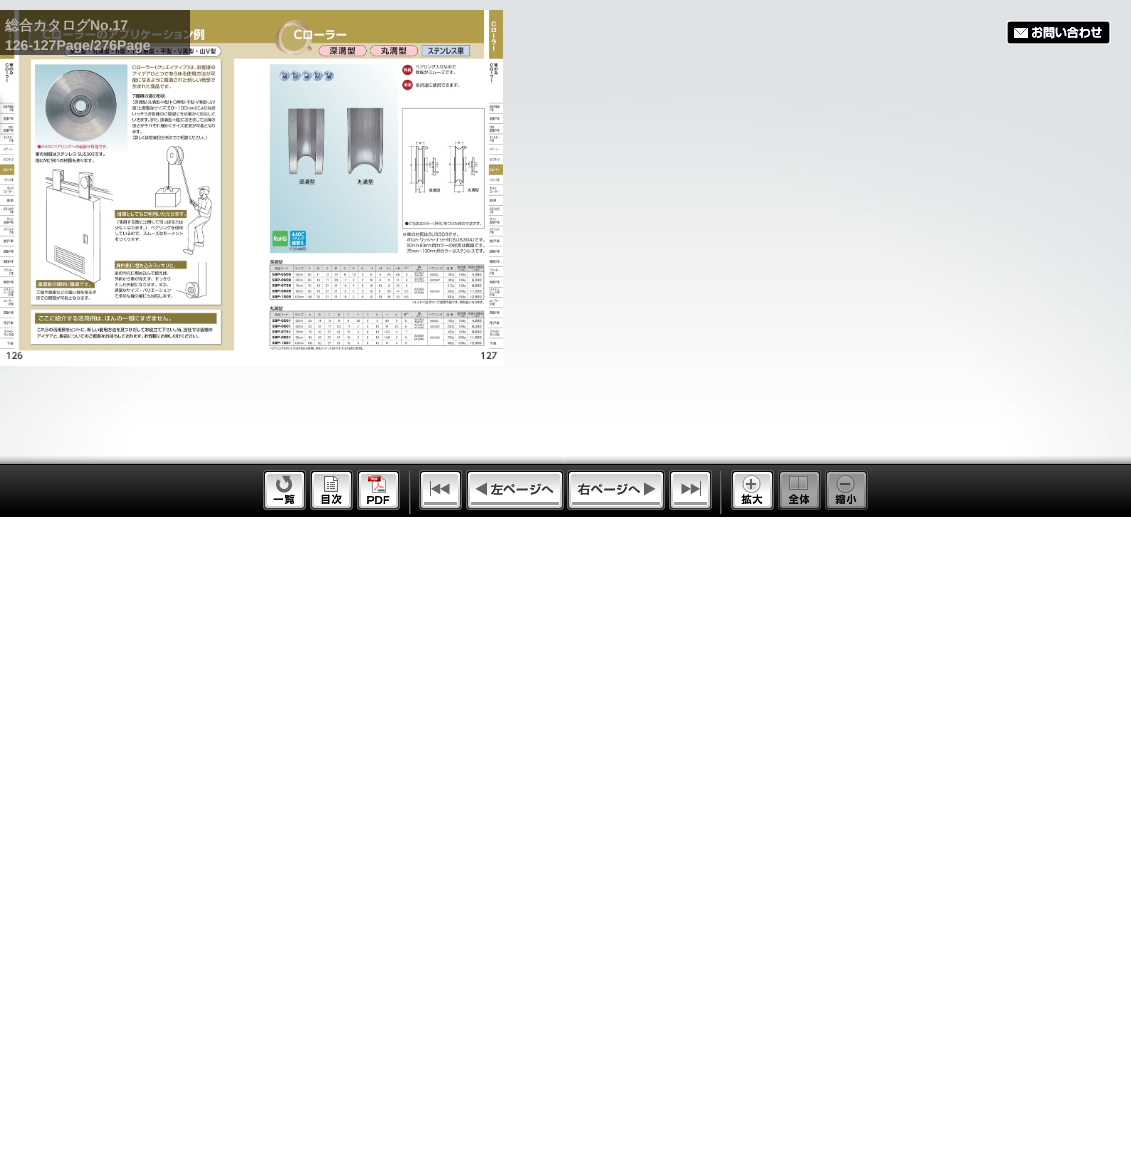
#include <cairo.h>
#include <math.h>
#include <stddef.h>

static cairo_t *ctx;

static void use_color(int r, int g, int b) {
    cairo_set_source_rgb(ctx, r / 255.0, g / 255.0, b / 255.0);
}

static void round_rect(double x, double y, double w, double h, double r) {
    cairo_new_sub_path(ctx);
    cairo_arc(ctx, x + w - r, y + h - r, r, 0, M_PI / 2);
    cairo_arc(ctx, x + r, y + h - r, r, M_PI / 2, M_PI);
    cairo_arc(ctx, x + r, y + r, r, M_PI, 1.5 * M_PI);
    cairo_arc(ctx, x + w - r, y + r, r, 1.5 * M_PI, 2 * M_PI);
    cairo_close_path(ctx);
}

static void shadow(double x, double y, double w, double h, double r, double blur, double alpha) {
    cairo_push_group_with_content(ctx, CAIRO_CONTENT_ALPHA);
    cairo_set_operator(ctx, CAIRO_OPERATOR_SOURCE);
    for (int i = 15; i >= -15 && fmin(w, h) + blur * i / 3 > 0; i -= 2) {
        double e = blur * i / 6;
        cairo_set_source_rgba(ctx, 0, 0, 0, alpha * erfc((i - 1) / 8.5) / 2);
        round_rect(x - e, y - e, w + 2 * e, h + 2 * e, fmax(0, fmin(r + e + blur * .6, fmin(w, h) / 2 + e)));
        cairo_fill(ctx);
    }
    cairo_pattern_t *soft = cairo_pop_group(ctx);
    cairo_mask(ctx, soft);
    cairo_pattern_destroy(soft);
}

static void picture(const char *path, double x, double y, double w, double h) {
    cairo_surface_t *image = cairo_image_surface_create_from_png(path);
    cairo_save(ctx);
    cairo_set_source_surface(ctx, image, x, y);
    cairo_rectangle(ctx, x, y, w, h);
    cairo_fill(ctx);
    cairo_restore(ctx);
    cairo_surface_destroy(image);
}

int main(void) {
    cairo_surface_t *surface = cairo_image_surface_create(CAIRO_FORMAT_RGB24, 1131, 1162);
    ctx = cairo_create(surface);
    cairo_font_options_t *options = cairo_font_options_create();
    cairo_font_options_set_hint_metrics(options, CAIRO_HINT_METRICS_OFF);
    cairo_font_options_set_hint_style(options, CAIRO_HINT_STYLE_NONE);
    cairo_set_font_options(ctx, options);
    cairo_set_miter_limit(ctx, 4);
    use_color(255, 255, 255);
    cairo_paint(ctx);
    picture("img1.png", 0, 0, 1131, 463);
    picture("img2.png", 0, 10, 252, 356);
    picture("img3.png", 252, 10, 251, 356);
    picture("img4.png", 269, 44, 228, 316);
    cairo_set_source_rgba(ctx, 0, 0, 0, 0.6);
    cairo_rectangle(ctx, 0, 10, 190, 45);
    cairo_fill(ctx);
    cairo_select_font_face(ctx, "WenQuanYi Zen Hei", CAIRO_FONT_SLANT_NORMAL, CAIRO_FONT_WEIGHT_BOLD);
    cairo_set_font_size(ctx, 14);
    use_color(184, 181, 171);
    cairo_move_to(ctx, 5, 30);
    cairo_show_text(ctx, "総合カタログ");
    cairo_select_font_face(ctx, "Liberation Sans", CAIRO_FONT_SLANT_NORMAL, CAIRO_FONT_WEIGHT_BOLD);
    use_color(182, 178, 165);
    cairo_move_to(ctx, 90, 30);
    cairo_show_text(ctx, "No.17");
    use_color(186, 184, 179);
    cairo_move_to(ctx, 5, 50);
    cairo_show_text(ctx, "126-127Page/276Page");
    picture("img5.png", 1006, 20, 105, 25);
    picture("img6.png", 0, 456, 1131, 61);
    picture("img7.png", 409, 471, 313, 43);
    picture("img8.png", 263, 470, 43, 40);
    picture("img9.png", 310, 470, 43, 40);
    picture("img10.png", 357, 470, 43, 40);
    picture("img11.png", 419, 470, 43, 40);
    picture("img12.png", 466, 470, 98, 40);
    picture("img13.png", 567, 470, 98, 40);
    picture("img14.png", 669, 470, 43, 40);
    picture("img15.png", 731, 470, 43, 40);
    picture("img16.png", 778, 470, 43, 40);
    picture("img17.png", 825, 470, 43, 40);
    use_color(51, 51, 51);
    shadow(-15, 100, 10, 34, 0, 5, 1);
    cairo_surface_write_to_png(surface, "result.png");
    cairo_font_options_destroy(options);
    cairo_destroy(ctx);
    cairo_surface_destroy(surface);
    return 0;
}
